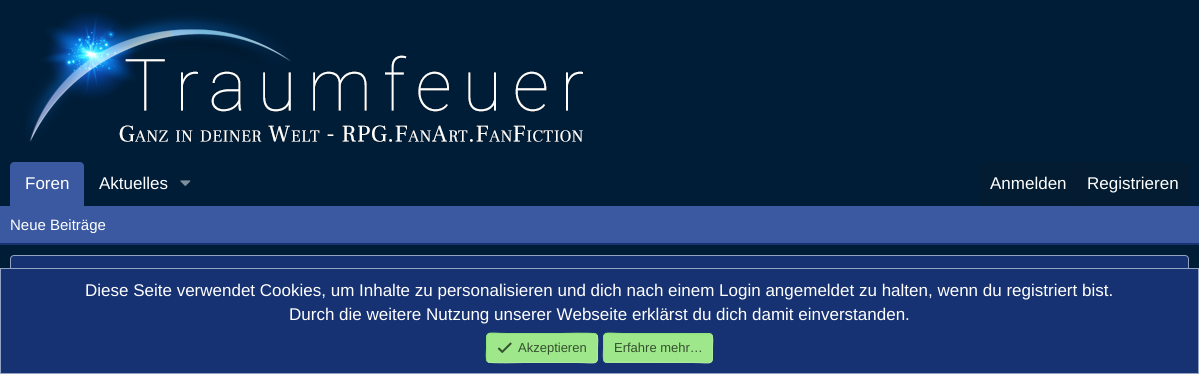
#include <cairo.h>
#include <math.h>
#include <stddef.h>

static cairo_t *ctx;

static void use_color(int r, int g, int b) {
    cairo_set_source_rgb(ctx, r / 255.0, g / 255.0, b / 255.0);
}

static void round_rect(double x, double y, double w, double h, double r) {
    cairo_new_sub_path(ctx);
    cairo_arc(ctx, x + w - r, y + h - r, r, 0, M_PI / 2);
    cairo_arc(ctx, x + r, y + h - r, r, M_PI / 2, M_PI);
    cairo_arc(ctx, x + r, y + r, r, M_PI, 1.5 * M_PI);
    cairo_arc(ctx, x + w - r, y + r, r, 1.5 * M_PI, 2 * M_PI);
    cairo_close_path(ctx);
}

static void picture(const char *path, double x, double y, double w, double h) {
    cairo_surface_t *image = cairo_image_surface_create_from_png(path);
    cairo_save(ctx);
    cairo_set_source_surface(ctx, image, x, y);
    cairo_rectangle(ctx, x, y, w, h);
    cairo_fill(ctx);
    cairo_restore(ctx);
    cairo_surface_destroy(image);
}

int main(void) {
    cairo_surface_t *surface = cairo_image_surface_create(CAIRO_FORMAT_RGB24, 1199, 374);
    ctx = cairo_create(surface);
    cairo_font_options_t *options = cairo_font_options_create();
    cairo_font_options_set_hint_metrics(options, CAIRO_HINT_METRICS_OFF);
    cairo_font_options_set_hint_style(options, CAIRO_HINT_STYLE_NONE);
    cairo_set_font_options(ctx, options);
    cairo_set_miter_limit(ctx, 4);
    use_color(0, 29, 55);
    cairo_paint(ctx);
    picture("img1.png", 25, 12, 558, 130);
    use_color(59, 89, 160);
    cairo_new_path(ctx);
    cairo_move_to(ctx, 14, 162);
    cairo_line_to(ctx, 80, 162);
    cairo_curve_to(ctx, 82, 162, 84, 164, 84, 166);
    cairo_line_to(ctx, 84, 206);
    cairo_line_to(ctx, 10, 206);
    cairo_line_to(ctx, 10, 166);
    cairo_curve_to(ctx, 10, 164, 12, 162, 14, 162);
    cairo_close_path(ctx);
    cairo_fill(ctx);
    cairo_select_font_face(ctx, "Liberation Sans", CAIRO_FONT_SLANT_NORMAL, CAIRO_FONT_WEIGHT_NORMAL);
    cairo_set_font_size(ctx, 17);
    use_color(255, 255, 255);
    cairo_move_to(ctx, 25, 189);
    cairo_show_text(ctx, "Foren");
    cairo_move_to(ctx, 99, 189);
    cairo_show_text(ctx, "Aktuelles");
    picture("img2.png", 180, 180, 11, 6);
    use_color(3, 28, 50);
    cairo_new_path(ctx);
    cairo_move_to(ctx, 984, 162);
    cairo_line_to(ctx, 1185, 162);
    cairo_curve_to(ctx, 1187, 162, 1189, 164, 1189, 166);
    cairo_line_to(ctx, 1189, 206);
    cairo_line_to(ctx, 980, 206);
    cairo_line_to(ctx, 980, 166);
    cairo_curve_to(ctx, 980, 164, 982, 162, 984, 162);
    cairo_close_path(ctx);
    cairo_fill(ctx);
    use_color(255, 255, 255);
    cairo_move_to(ctx, 990, 189);
    cairo_show_text(ctx, "Anmelden");
    use_color(6, 27, 46);
    cairo_rectangle(ctx, 1076, 162, 1, 44);
    cairo_fill(ctx);
    use_color(255, 255, 255);
    cairo_move_to(ctx, 1087, 189);
    cairo_show_text(ctx, "Registrieren");
    use_color(59, 89, 160);
    cairo_rectangle(ctx, 0, 206, 1199, 37);
    cairo_fill(ctx);
    use_color(23, 50, 114);
    cairo_rectangle(ctx, 0, 243, 1199, 2);
    cairo_fill(ctx);
    cairo_set_font_size(ctx, 15);
    use_color(255, 255, 255);
    cairo_move_to(ctx, 10, 230);
    cairo_show_text(ctx, "Neue Beiträge");
    use_color(23, 50, 114);
    round_rect(10.5, 255.5, 1178, 68, 3.5);
    cairo_fill_preserve(ctx);
    use_color(148, 162, 195);
    cairo_set_line_width(ctx, 1);
    cairo_stroke(ctx);
    use_color(23, 50, 114);
    cairo_rectangle(ctx, 0.5, 268.5, 1198, 105);
    cairo_fill_preserve(ctx);
    use_color(148, 162, 195);
    cairo_stroke(ctx);
    cairo_set_font_size(ctx, 17);
    use_color(255, 255, 255);
    cairo_move_to(ctx, 85, 296);
    cairo_show_text(ctx, "Diese Seite verwendet Cookies, um Inhalte zu personalisieren und dich nach einem Login angemeldet zu halten, wenn du registriert bist.");
    cairo_move_to(ctx, 289, 320);
    cairo_show_text(ctx, "Durch die weitere Nutzung unserer Webseite erklärst du dich damit einverstanden.");
    use_color(158, 231, 139);
    round_rect(486, 333, 112, 30, 4);
    cairo_fill(ctx);
    cairo_new_path(ctx);
    cairo_move_to(ctx, 596.5, 334.5);
    cairo_curve_to(ctx, 598.5, 336.5, 597.5, 345, 597.5, 348);
    cairo_curve_to(ctx, 597.5, 367, 599, 362.5, 576.5, 362.5);
    cairo_line_to(ctx, 524.5, 362.5);
    cairo_curve_to(ctx, 521, 362.5, 491, 363.5, 488.5, 362);
    cairo_line_to(ctx, 487.5, 361.5);
    use_color(176, 235, 160);
    cairo_stroke(ctx);
    cairo_new_path(ctx);
    cairo_move_to(ctx, 487.5, 361.5);
    cairo_curve_to(ctx, 485.5, 359.5, 486.5, 351, 486.5, 348);
    cairo_curve_to(ctx, 486.5, 329, 485, 333.5, 507.5, 333.5);
    cairo_line_to(ctx, 559.5, 333.5);
    cairo_curve_to(ctx, 563, 333.5, 593, 332.5, 595.5, 334);
    cairo_line_to(ctx, 596.5, 334.5);
    use_color(140, 227, 118);
    cairo_stroke(ctx);
    picture("img3.png", 497, 342, 15, 12);
    cairo_set_font_size(ctx, 13);
    use_color(52, 80, 45);
    cairo_move_to(ctx, 518, 352);
    cairo_show_text(ctx, "Akzeptieren");
    use_color(158, 231, 139);
    round_rect(603, 333, 110, 30, 4);
    cairo_fill(ctx);
    cairo_new_path(ctx);
    cairo_move_to(ctx, 711.5, 334.5);
    cairo_curve_to(ctx, 713.5, 336.5, 712.5, 345, 712.5, 348);
    cairo_curve_to(ctx, 712.5, 367, 714, 362.5, 692, 362.5);
    cairo_line_to(ctx, 605.5, 362);
    cairo_line_to(ctx, 604.5, 361.5);
    use_color(176, 235, 160);
    cairo_stroke(ctx);
    cairo_new_path(ctx);
    cairo_move_to(ctx, 604.5, 361.5);
    cairo_curve_to(ctx, 602.5, 359.5, 603.5, 351, 603.5, 348);
    cairo_curve_to(ctx, 603.5, 329, 602, 333.5, 624, 333.5);
    cairo_line_to(ctx, 710.5, 334);
    cairo_line_to(ctx, 711.5, 334.5);
    use_color(140, 227, 118);
    cairo_stroke(ctx);
    use_color(52, 80, 45);
    cairo_move_to(ctx, 614, 352);
    cairo_show_text(ctx, "Erfahre mehr…");
    cairo_surface_write_to_png(surface, "result.png");
    cairo_font_options_destroy(options);
    cairo_destroy(ctx);
    cairo_surface_destroy(surface);
    return 0;
}
